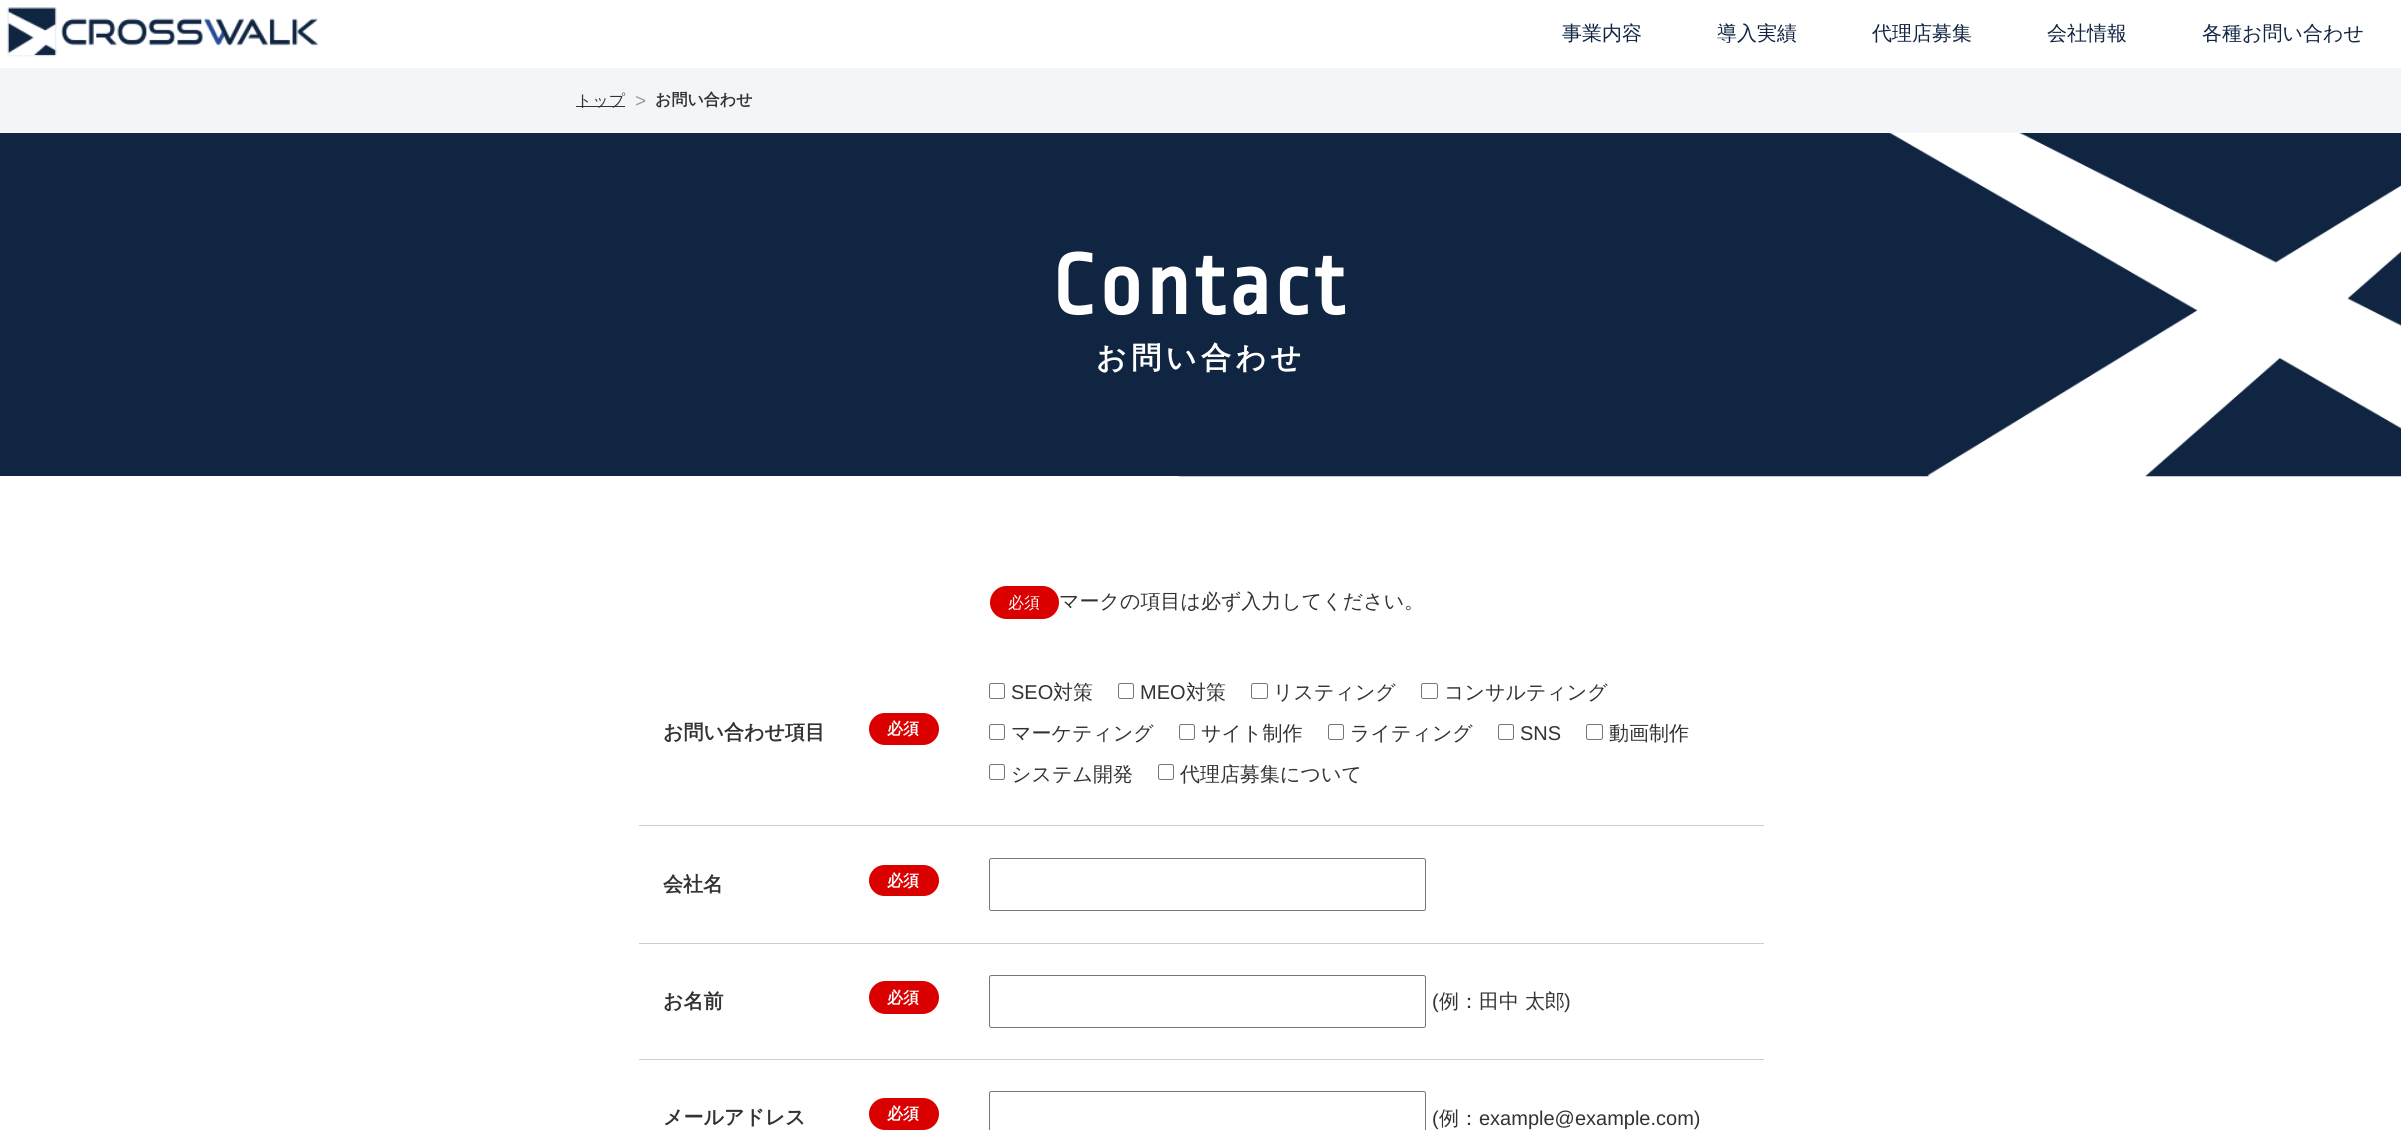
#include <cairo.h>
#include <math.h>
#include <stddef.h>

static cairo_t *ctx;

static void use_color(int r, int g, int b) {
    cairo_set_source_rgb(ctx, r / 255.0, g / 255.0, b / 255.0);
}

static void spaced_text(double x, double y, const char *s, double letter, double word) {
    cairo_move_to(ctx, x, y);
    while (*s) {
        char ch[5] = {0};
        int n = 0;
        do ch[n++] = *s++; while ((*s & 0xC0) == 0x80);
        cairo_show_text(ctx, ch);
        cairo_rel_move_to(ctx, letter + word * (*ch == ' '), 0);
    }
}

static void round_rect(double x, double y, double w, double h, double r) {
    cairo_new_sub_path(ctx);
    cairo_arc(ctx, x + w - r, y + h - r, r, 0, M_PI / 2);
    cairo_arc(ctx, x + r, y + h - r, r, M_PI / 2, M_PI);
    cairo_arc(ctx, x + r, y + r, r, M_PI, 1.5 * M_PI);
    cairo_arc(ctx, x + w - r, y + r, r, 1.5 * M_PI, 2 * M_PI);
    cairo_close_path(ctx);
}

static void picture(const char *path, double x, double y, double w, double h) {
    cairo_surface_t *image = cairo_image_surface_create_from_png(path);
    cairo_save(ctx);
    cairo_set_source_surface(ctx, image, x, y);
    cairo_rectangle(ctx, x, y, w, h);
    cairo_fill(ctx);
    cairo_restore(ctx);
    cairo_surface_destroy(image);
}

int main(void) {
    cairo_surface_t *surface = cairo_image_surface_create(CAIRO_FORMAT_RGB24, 2401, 1130);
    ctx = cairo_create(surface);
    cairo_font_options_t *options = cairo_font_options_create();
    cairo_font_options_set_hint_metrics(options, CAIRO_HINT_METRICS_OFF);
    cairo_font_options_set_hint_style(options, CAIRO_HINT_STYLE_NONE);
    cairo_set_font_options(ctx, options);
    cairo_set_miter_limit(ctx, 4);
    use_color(255, 255, 255);
    cairo_paint(ctx);
    picture("img1.png", 7, 7, 311, 50);
    cairo_select_font_face(ctx, "WenQuanYi Zen Hei Medium", CAIRO_FONT_SLANT_NORMAL, CAIRO_FONT_WEIGHT_NORMAL);
    cairo_set_font_size(ctx, 20);
    use_color(16, 37, 66);
    cairo_move_to(ctx, 1562, 40);
    cairo_show_text(ctx, "事業内容");
    cairo_move_to(ctx, 1717, 40);
    cairo_show_text(ctx, "導入実績");
    cairo_move_to(ctx, 1872, 40);
    cairo_show_text(ctx, "代理店募集");
    cairo_move_to(ctx, 2047, 40);
    cairo_show_text(ctx, "会社情報");
    cairo_move_to(ctx, 2202, 40);
    cairo_show_text(ctx, "各種お問い合わせ");
    use_color(243, 246, 249);
    cairo_rectangle(ctx, 0, 68, 2401, 65);
    cairo_fill(ctx);
    use_color(51, 51, 51);
    cairo_rectangle(ctx, 576, 106, 49, 1);
    cairo_fill(ctx);
    cairo_set_font_size(ctx, 16);
    cairo_move_to(ctx, 576, 106);
    cairo_show_text(ctx, "トップ");
    cairo_select_font_face(ctx, "Liberation Sans", CAIRO_FONT_SLANT_NORMAL, CAIRO_FONT_WEIGHT_NORMAL);
    cairo_set_font_size(ctx, 19);
    use_color(153, 153, 153);
    spaced_text(635, 107, ">", -4, 0);
    cairo_select_font_face(ctx, "WenQuanYi Zen Hei", CAIRO_FONT_SLANT_NORMAL, CAIRO_FONT_WEIGHT_BOLD);
    cairo_set_font_size(ctx, 16);
    use_color(51, 51, 51);
    cairo_move_to(ctx, 655, 105);
    cairo_show_text(ctx, "お問い合わせ");
    use_color(16, 37, 66);
    cairo_rectangle(ctx, 0, 133, 1179, 343);
    cairo_fill(ctx);
    picture("img2.png", 1178, 133, 1223, 344);
    cairo_select_font_face(ctx, "Ropa Sans", CAIRO_FONT_SLANT_NORMAL, CAIRO_FONT_WEIGHT_BOLD);
    cairo_set_font_size(ctx, 90);
    use_color(255, 255, 255);
    spaced_text(1052, 314, "Contact", 4.5, 0);
    cairo_select_font_face(ctx, "WenQuanYi Zen Hei", CAIRO_FONT_SLANT_NORMAL, CAIRO_FONT_WEIGHT_BOLD);
    cairo_set_font_size(ctx, 30);
    spaced_text(1096, 368, "お問い合わせ", 4.5, 0);
    use_color(218, 0, 0);
    round_rect(990, 586, 69, 33, 16.5);
    cairo_fill(ctx);
    cairo_select_font_face(ctx, "WenQuanYi Zen Hei Medium", CAIRO_FONT_SLANT_NORMAL, CAIRO_FONT_WEIGHT_NORMAL);
    cairo_set_font_size(ctx, 16);
    use_color(255, 255, 255);
    cairo_move_to(ctx, 1008, 608);
    cairo_show_text(ctx, "必須");
    cairo_set_font_size(ctx, 20);
    use_color(51, 51, 51);
    cairo_move_to(ctx, 1059, 608);
    cairo_show_text(ctx, "マークの項目は必ず入力してください。");
    cairo_select_font_face(ctx, "WenQuanYi Zen Hei", CAIRO_FONT_SLANT_NORMAL, CAIRO_FONT_WEIGHT_BOLD);
    cairo_move_to(ctx, 663, 739);
    cairo_show_text(ctx, "お問い合わせ項目");
    use_color(218, 0, 0);
    round_rect(869, 713, 70, 32, 16);
    cairo_fill(ctx);
    cairo_set_font_size(ctx, 16);
    use_color(255, 255, 255);
    cairo_move_to(ctx, 887, 734);
    cairo_show_text(ctx, "必須");
    round_rect(989.5, 683.5, 15, 15, 2);
    use_color(118, 118, 118);
    cairo_set_line_width(ctx, 1);
    cairo_stroke(ctx);
    cairo_select_font_face(ctx, "Liberation Sans", CAIRO_FONT_SLANT_NORMAL, CAIRO_FONT_WEIGHT_NORMAL);
    cairo_set_font_size(ctx, 20);
    use_color(51, 51, 51);
    cairo_move_to(ctx, 1011, 699);
    cairo_show_text(ctx, "SEO");
    cairo_select_font_face(ctx, "WenQuanYi Zen Hei Medium", CAIRO_FONT_SLANT_NORMAL, CAIRO_FONT_WEIGHT_NORMAL);
    cairo_move_to(ctx, 1053, 699);
    cairo_show_text(ctx, "対策");
    round_rect(1118.5, 683.5, 15, 15, 2);
    use_color(118, 118, 118);
    cairo_stroke(ctx);
    cairo_select_font_face(ctx, "Liberation Sans", CAIRO_FONT_SLANT_NORMAL, CAIRO_FONT_WEIGHT_NORMAL);
    use_color(51, 51, 51);
    cairo_move_to(ctx, 1140, 699);
    cairo_show_text(ctx, "MEO");
    cairo_select_font_face(ctx, "WenQuanYi Zen Hei Medium", CAIRO_FONT_SLANT_NORMAL, CAIRO_FONT_WEIGHT_NORMAL);
    cairo_move_to(ctx, 1186, 699);
    cairo_show_text(ctx, "対策");
    round_rect(1251.5, 683.5, 16, 15, 2);
    use_color(118, 118, 118);
    cairo_stroke(ctx);
    use_color(51, 51, 51);
    cairo_move_to(ctx, 1273, 699);
    cairo_show_text(ctx, "リスティング");
    round_rect(1421.5, 683.5, 16, 15, 2);
    use_color(118, 118, 118);
    cairo_stroke(ctx);
    use_color(51, 51, 51);
    cairo_move_to(ctx, 1444, 699);
    cairo_show_text(ctx, "コンサルティング");
    round_rect(989.5, 724.5, 15, 15, 2);
    use_color(118, 118, 118);
    cairo_stroke(ctx);
    use_color(51, 51, 51);
    cairo_move_to(ctx, 1011, 740);
    cairo_show_text(ctx, "マーケティング");
    round_rect(1179.5, 724.5, 15, 15, 2);
    use_color(118, 118, 118);
    cairo_stroke(ctx);
    use_color(51, 51, 51);
    cairo_move_to(ctx, 1201, 740);
    cairo_show_text(ctx, "サイト制作");
    round_rect(1328.5, 724.5, 15, 15, 2);
    use_color(118, 118, 118);
    cairo_stroke(ctx);
    use_color(51, 51, 51);
    cairo_move_to(ctx, 1350, 740);
    cairo_show_text(ctx, "ライティング");
    round_rect(1498.5, 724.5, 15, 15, 2);
    use_color(118, 118, 118);
    cairo_stroke(ctx);
    cairo_select_font_face(ctx, "Liberation Sans", CAIRO_FONT_SLANT_NORMAL, CAIRO_FONT_WEIGHT_NORMAL);
    use_color(51, 51, 51);
    cairo_move_to(ctx, 1520, 740);
    cairo_show_text(ctx, "SNS");
    round_rect(1586.5, 724.5, 16, 15, 2);
    use_color(118, 118, 118);
    cairo_stroke(ctx);
    cairo_select_font_face(ctx, "WenQuanYi Zen Hei Medium", CAIRO_FONT_SLANT_NORMAL, CAIRO_FONT_WEIGHT_NORMAL);
    use_color(51, 51, 51);
    cairo_move_to(ctx, 1609, 740);
    cairo_show_text(ctx, "動画制作");
    round_rect(989.5, 764.5, 15, 15, 2);
    use_color(118, 118, 118);
    cairo_stroke(ctx);
    use_color(51, 51, 51);
    cairo_move_to(ctx, 1011, 781);
    cairo_show_text(ctx, "システム開発");
    round_rect(1158.5, 764.5, 15, 15, 2);
    use_color(118, 118, 118);
    cairo_stroke(ctx);
    use_color(51, 51, 51);
    cairo_move_to(ctx, 1180, 781);
    cairo_show_text(ctx, "代理店募集について");
    use_color(204, 204, 204);
    cairo_rectangle(ctx, 639, 825, 1125, 1);
    cairo_fill(ctx);
    cairo_select_font_face(ctx, "WenQuanYi Zen Hei", CAIRO_FONT_SLANT_NORMAL, CAIRO_FONT_WEIGHT_BOLD);
    use_color(51, 51, 51);
    cairo_move_to(ctx, 663, 891);
    cairo_show_text(ctx, "会社名");
    use_color(218, 0, 0);
    round_rect(869, 865, 70, 31, 15.5);
    cairo_fill(ctx);
    cairo_set_font_size(ctx, 16);
    use_color(255, 255, 255);
    cairo_move_to(ctx, 887, 886);
    cairo_show_text(ctx, "必須");
    round_rect(989.5, 858.5, 436, 52, 2);
    use_color(118, 118, 118);
    cairo_stroke(ctx);
    use_color(204, 204, 204);
    cairo_rectangle(ctx, 639, 943, 1125, 1);
    cairo_fill(ctx);
    cairo_set_font_size(ctx, 20);
    use_color(51, 51, 51);
    cairo_move_to(ctx, 663, 1008);
    cairo_show_text(ctx, "お名前");
    use_color(218, 0, 0);
    round_rect(869, 981, 70, 33, 16.5);
    cairo_fill(ctx);
    cairo_set_font_size(ctx, 16);
    use_color(255, 255, 255);
    cairo_move_to(ctx, 887, 1003);
    cairo_show_text(ctx, "必須");
    round_rect(989.5, 975.5, 436, 52, 2);
    use_color(118, 118, 118);
    cairo_stroke(ctx);
    cairo_select_font_face(ctx, "Liberation Sans", CAIRO_FONT_SLANT_NORMAL, CAIRO_FONT_WEIGHT_NORMAL);
    cairo_set_font_size(ctx, 20);
    use_color(51, 51, 51);
    cairo_move_to(ctx, 1432, 1008);
    cairo_show_text(ctx, "(");
    cairo_select_font_face(ctx, "WenQuanYi Zen Hei Medium", CAIRO_FONT_SLANT_NORMAL, CAIRO_FONT_WEIGHT_NORMAL);
    cairo_move_to(ctx, 1439, 1008);
    cairo_show_text(ctx, "例：田中 太郎");
    cairo_select_font_face(ctx, "Liberation Sans", CAIRO_FONT_SLANT_NORMAL, CAIRO_FONT_WEIGHT_NORMAL);
    cairo_move_to(ctx, 1564, 1008);
    cairo_show_text(ctx, ")");
    use_color(204, 204, 204);
    cairo_rectangle(ctx, 639, 1059, 1125, 1);
    cairo_fill(ctx);
    cairo_select_font_face(ctx, "WenQuanYi Zen Hei", CAIRO_FONT_SLANT_NORMAL, CAIRO_FONT_WEIGHT_BOLD);
    use_color(51, 51, 51);
    cairo_move_to(ctx, 663, 1124);
    cairo_show_text(ctx, "メールアドレス");
    use_color(218, 0, 0);
    round_rect(869, 1098, 70, 32, 16);
    cairo_fill(ctx);
    cairo_set_font_size(ctx, 16);
    use_color(255, 255, 255);
    cairo_move_to(ctx, 887, 1119);
    cairo_show_text(ctx, "必須");
    round_rect(989.5, 1091.5, 436, 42, 2);
    use_color(118, 118, 118);
    cairo_stroke(ctx);
    cairo_select_font_face(ctx, "Liberation Sans", CAIRO_FONT_SLANT_NORMAL, CAIRO_FONT_WEIGHT_NORMAL);
    cairo_set_font_size(ctx, 20);
    use_color(51, 51, 51);
    cairo_move_to(ctx, 1432, 1125);
    cairo_show_text(ctx, "(");
    cairo_select_font_face(ctx, "WenQuanYi Zen Hei Medium", CAIRO_FONT_SLANT_NORMAL, CAIRO_FONT_WEIGHT_NORMAL);
    cairo_move_to(ctx, 1439, 1125);
    cairo_show_text(ctx, "例：");
    cairo_select_font_face(ctx, "Liberation Sans", CAIRO_FONT_SLANT_NORMAL, CAIRO_FONT_WEIGHT_NORMAL);
    cairo_move_to(ctx, 1479, 1125);
    cairo_show_text(ctx, "example@example.com)");
    cairo_surface_write_to_png(surface, "result.png");
    cairo_font_options_destroy(options);
    cairo_destroy(ctx);
    cairo_surface_destroy(surface);
    return 0;
}
